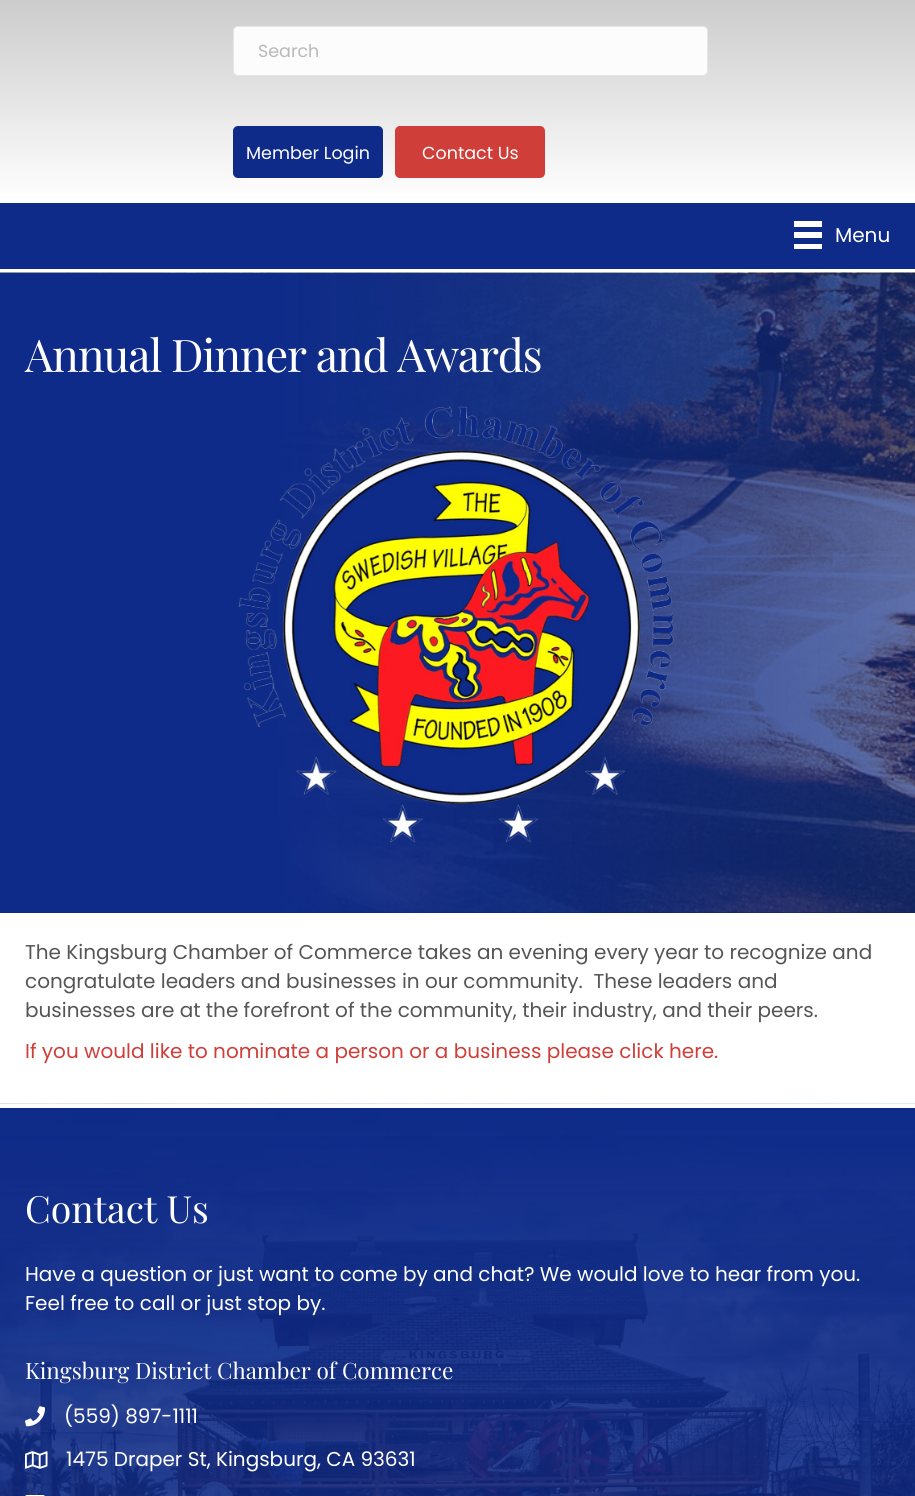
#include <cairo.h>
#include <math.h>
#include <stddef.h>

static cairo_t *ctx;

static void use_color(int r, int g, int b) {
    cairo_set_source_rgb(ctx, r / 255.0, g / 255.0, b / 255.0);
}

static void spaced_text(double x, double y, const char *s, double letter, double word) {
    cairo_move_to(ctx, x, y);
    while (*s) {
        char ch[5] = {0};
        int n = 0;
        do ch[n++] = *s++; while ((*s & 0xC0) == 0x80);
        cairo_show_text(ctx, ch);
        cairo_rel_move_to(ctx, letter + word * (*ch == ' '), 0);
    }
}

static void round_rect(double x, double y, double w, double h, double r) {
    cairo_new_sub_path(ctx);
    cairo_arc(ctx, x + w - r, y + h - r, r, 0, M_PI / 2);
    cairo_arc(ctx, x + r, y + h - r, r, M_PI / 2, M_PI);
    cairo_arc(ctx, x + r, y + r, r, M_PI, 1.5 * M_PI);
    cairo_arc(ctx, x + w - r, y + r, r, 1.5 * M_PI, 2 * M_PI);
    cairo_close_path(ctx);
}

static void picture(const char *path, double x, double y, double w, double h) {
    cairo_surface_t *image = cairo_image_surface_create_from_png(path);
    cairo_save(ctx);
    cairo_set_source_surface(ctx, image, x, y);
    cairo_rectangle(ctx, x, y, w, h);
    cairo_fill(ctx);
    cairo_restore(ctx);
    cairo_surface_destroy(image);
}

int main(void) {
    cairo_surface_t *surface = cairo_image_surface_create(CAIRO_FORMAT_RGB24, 915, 1496);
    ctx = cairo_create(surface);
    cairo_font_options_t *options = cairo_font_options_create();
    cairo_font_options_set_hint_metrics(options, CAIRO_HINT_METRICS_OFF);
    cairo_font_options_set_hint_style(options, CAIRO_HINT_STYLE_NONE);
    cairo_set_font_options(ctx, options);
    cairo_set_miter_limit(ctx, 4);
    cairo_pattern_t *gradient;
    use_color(255, 255, 255);
    cairo_paint(ctx);
    gradient = cairo_pattern_create_linear(458, 0, 458, 203);
    cairo_pattern_add_color_stop_rgba(gradient, 0, 0.8, 0.8, 0.8, 1);
    cairo_pattern_add_color_stop_rgba(gradient, 1, 1, 1, 1, 1);
    cairo_set_source(ctx, gradient);
    cairo_pattern_destroy(gradient);
    cairo_rectangle(ctx, 0, 0, 915, 193);
    cairo_fill(ctx);
    use_color(252, 252, 252);
    round_rect(233.5, 26.5, 474, 49, 4.5);
    cairo_fill_preserve(ctx);
    use_color(230, 230, 230);
    cairo_set_line_width(ctx, 1);
    cairo_stroke(ctx);
    cairo_select_font_face(ctx, "Poppins", CAIRO_FONT_SLANT_NORMAL, CAIRO_FONT_WEIGHT_NORMAL);
    cairo_set_font_size(ctx, 17.5);
    use_color(185, 185, 185);
    cairo_move_to(ctx, 258, 57);
    cairo_show_text(ctx, "Search");
    use_color(14, 43, 137);
    round_rect(233, 126, 150, 52, 5);
    cairo_fill(ctx);
    use_color(255, 255, 255);
    cairo_move_to(ctx, 246, 159);
    cairo_show_text(ctx, "Member Login");
    use_color(207, 62, 56);
    round_rect(395, 126, 150, 52, 5);
    cairo_fill(ctx);
    use_color(255, 255, 255);
    cairo_move_to(ctx, 422, 159);
    cairo_show_text(ctx, "Contact Us");
    use_color(14, 43, 137);
    cairo_rectangle(ctx, 0, 203, 915, 66);
    cairo_fill(ctx);
    use_color(255, 255, 255);
    cairo_rectangle(ctx, 794, 221, 28, 6);
    cairo_fill(ctx);
    cairo_rectangle(ctx, 794, 232, 28, 6);
    cairo_fill(ctx);
    cairo_rectangle(ctx, 794, 244, 28, 5);
    cairo_fill(ctx);
    cairo_set_font_size(ctx, 20);
    cairo_move_to(ctx, 835, 242);
    cairo_show_text(ctx, "Menu");
    use_color(5, 22, 34);
    cairo_rectangle(ctx, 284, 912, 631, 1);
    cairo_fill(ctx);
    picture("img1.png", 0, 272, 915, 641);
    gradient = cairo_pattern_create_linear(0, 593, 915, 593);
    cairo_pattern_add_color_stop_rgba(gradient, 0.3, 0.055, 0.169, 0.537, 1);
    cairo_pattern_add_color_stop_rgba(gradient, 1, 0.055, 0.169, 0.537, 0.62);
    cairo_set_source(ctx, gradient);
    cairo_pattern_destroy(gradient);
    cairo_rectangle(ctx, 0, 273, 915, 640);
    cairo_fill(ctx);
    cairo_select_font_face(ctx, "Playfair Display", CAIRO_FONT_SLANT_NORMAL, CAIRO_FONT_WEIGHT_NORMAL);
    cairo_set_font_size(ctx, 45);
    use_color(255, 255, 255);
    spaced_text(25, 372, "Annual Dinner and Awards", -1.25, 0);
    picture("img2.png", 238, 406, 436, 437);
    cairo_select_font_face(ctx, "Poppins", CAIRO_FONT_SLANT_NORMAL, CAIRO_FONT_WEIGHT_NORMAL);
    cairo_set_font_size(ctx, 20);
    use_color(85, 85, 85);
    cairo_move_to(ctx, 25, 959);
    cairo_show_text(ctx, "The Kingsburg Chamber of Commerce takes an evening every year to recognize and");
    cairo_move_to(ctx, 25, 988);
    cairo_show_text(ctx, "congratulate leaders and businesses in our community.  These leaders and");
    cairo_move_to(ctx, 25, 1017);
    cairo_show_text(ctx, "businesses are at the forefront of the community, their industry, and their peers.");
    use_color(207, 62, 56);
    cairo_move_to(ctx, 25, 1058);
    cairo_show_text(ctx, "If you would like to nominate a person or a business please click here.");
    picture("img3.png", 0, 1103, 915, 393);
    use_color(255, 255, 255);
    cairo_rectangle(ctx, 0, 1104, 915, 4);
    cairo_fill(ctx);
    cairo_select_font_face(ctx, "Playfair Display", CAIRO_FONT_SLANT_NORMAL, CAIRO_FONT_WEIGHT_NORMAL);
    cairo_set_font_size(ctx, 37.5);
    cairo_move_to(ctx, 25, 1223);
    cairo_show_text(ctx, "Contact Us");
    cairo_select_font_face(ctx, "Poppins", CAIRO_FONT_SLANT_NORMAL, CAIRO_FONT_WEIGHT_NORMAL);
    cairo_set_font_size(ctx, 20);
    cairo_move_to(ctx, 25, 1281);
    cairo_show_text(ctx, "Have a question or just want to come by and chat? We would love to hear from you.");
    cairo_move_to(ctx, 25, 1310);
    cairo_show_text(ctx, "Feel free to call or just stop by.");
    cairo_select_font_face(ctx, "Playfair Display", CAIRO_FONT_SLANT_NORMAL, CAIRO_FONT_WEIGHT_NORMAL);
    cairo_set_font_size(ctx, 22.5);
    cairo_move_to(ctx, 25, 1379);
    cairo_show_text(ctx, "Kingsburg District Chamber of Commerce");
    picture("img4.png", 25, 1406, 20, 21);
    cairo_select_font_face(ctx, "Poppins", CAIRO_FONT_SLANT_NORMAL, CAIRO_FONT_WEIGHT_NORMAL);
    cairo_set_font_size(ctx, 20);
    cairo_move_to(ctx, 64, 1423);
    cairo_show_text(ctx, "(559) 897-1111");
    picture("img5.png", 25, 1451, 23, 18);
    cairo_move_to(ctx, 66, 1466);
    cairo_show_text(ctx, "1475 Draper St, Kingsburg, CA 93631");
    picture("img6.png", 25, 1495, 20, 1);
    cairo_surface_write_to_png(surface, "result.png");
    cairo_font_options_destroy(options);
    cairo_destroy(ctx);
    cairo_surface_destroy(surface);
    return 0;
}
